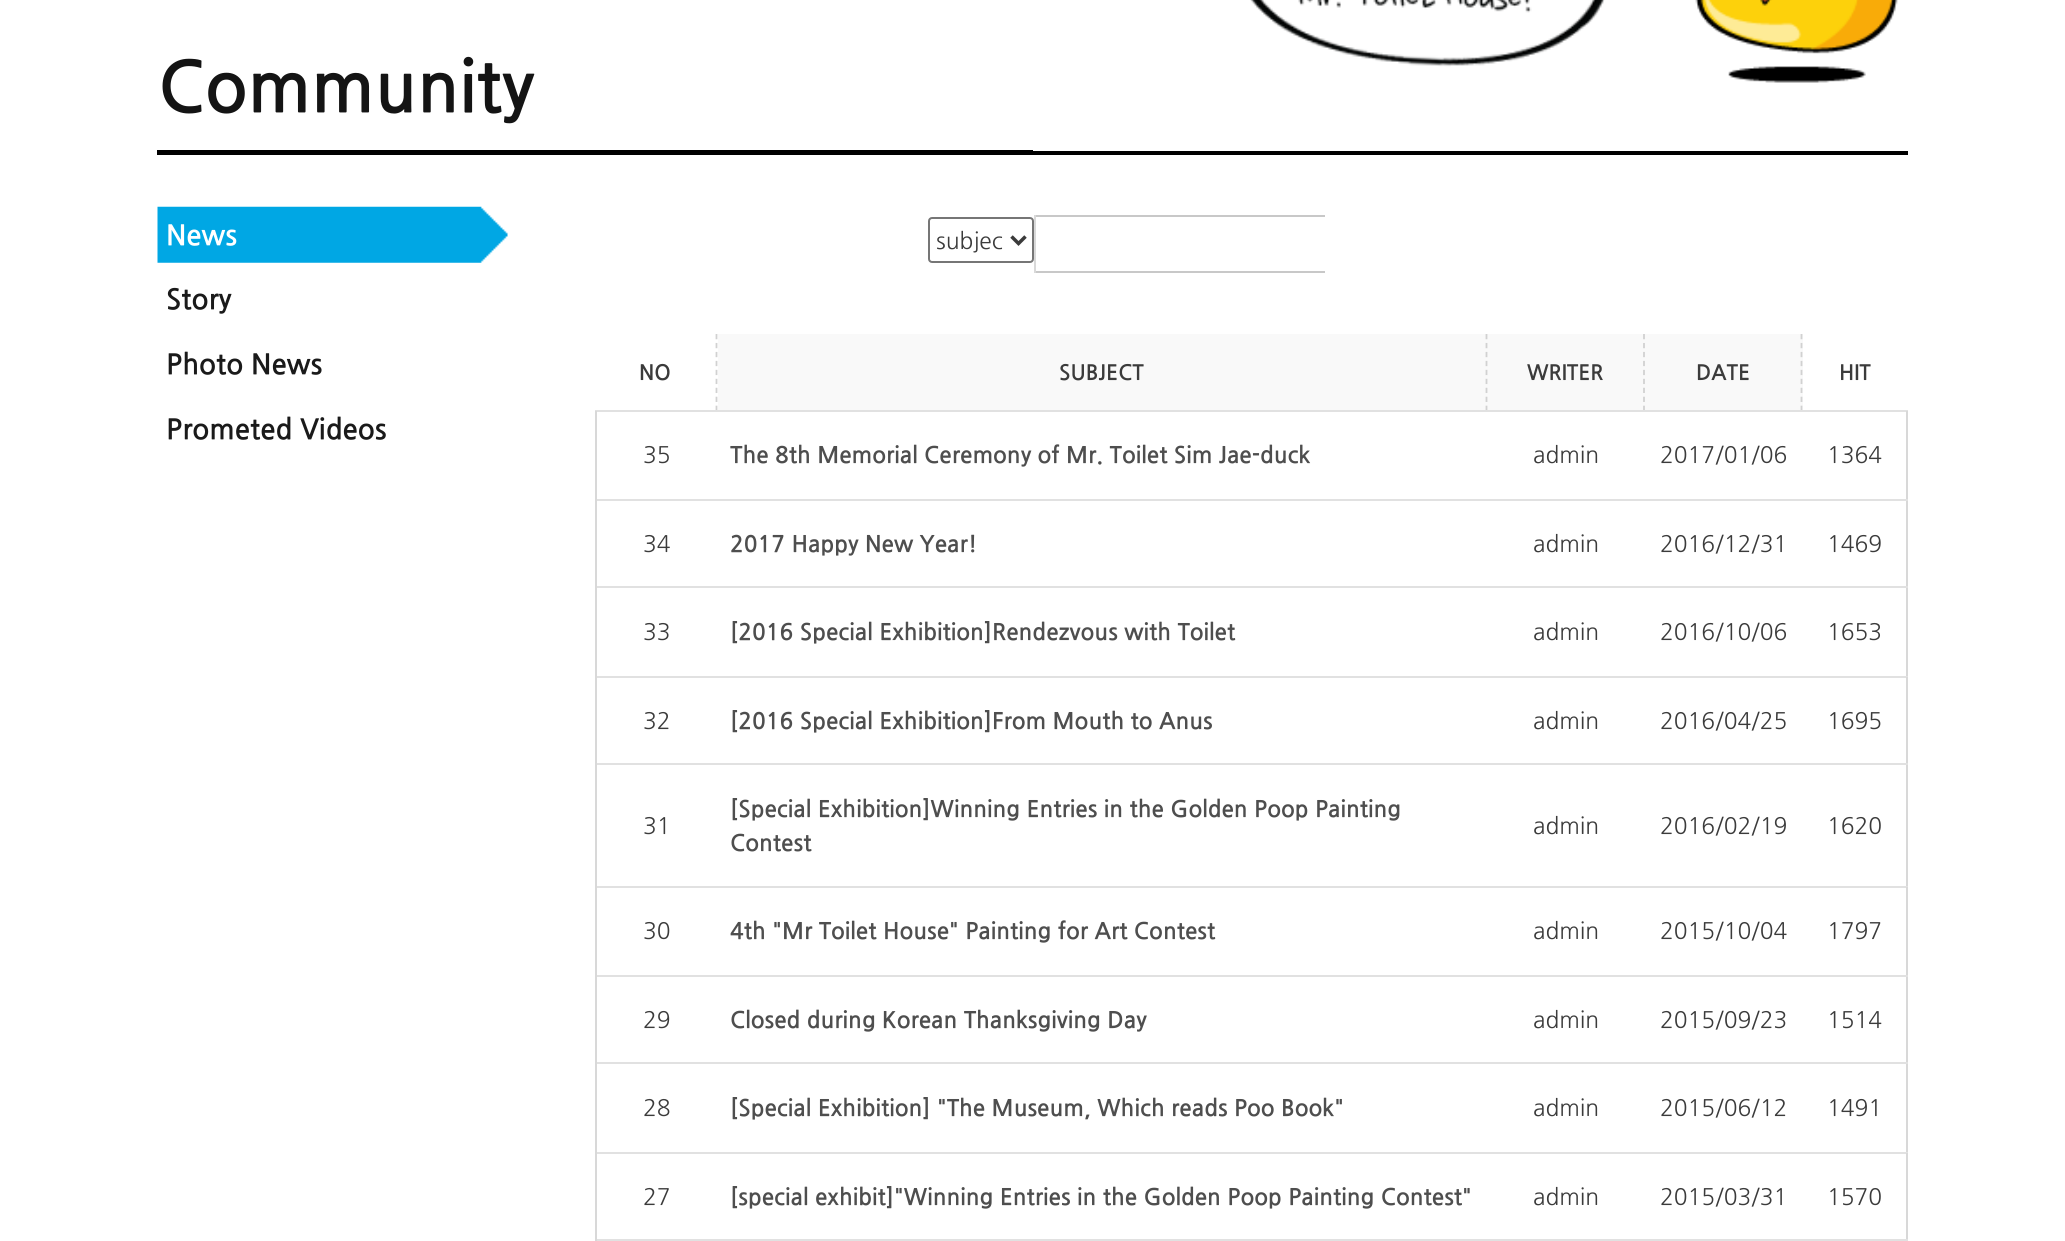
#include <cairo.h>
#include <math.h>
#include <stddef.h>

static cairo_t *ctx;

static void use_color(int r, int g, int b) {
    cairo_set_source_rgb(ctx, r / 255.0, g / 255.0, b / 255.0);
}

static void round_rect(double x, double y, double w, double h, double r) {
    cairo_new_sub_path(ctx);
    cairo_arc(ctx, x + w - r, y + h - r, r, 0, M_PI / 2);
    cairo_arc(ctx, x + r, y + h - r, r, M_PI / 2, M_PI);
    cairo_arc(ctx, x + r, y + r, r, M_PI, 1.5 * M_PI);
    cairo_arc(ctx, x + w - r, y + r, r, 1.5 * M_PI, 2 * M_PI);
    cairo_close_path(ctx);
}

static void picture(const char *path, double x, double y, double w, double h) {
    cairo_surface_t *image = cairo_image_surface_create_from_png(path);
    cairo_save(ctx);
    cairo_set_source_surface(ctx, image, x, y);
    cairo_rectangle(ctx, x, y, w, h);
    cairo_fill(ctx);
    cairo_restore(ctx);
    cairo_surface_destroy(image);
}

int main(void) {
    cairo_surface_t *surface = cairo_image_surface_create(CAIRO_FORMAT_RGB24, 2065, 1241);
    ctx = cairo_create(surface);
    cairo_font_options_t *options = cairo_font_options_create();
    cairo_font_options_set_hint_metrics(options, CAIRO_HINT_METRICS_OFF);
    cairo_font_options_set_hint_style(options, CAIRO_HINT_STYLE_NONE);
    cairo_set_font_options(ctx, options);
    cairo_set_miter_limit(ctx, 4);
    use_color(255, 255, 255);
    cairo_paint(ctx);
    picture("img1.png", 1250, 0, 648, 83);
    use_color(0, 0, 0);
    cairo_rectangle(ctx, 157, 150, 876, 5);
    cairo_fill(ctx);
    cairo_select_font_face(ctx, "NanumGothic", CAIRO_FONT_SLANT_NORMAL, CAIRO_FONT_WEIGHT_BOLD);
    cairo_set_font_size(ctx, 70);
    use_color(20, 20, 20);
    cairo_move_to(ctx, 158, 109);
    cairo_show_text(ctx, "Community");
    picture("img2.png", 157, 206, 351, 57);
    cairo_set_font_size(ctx, 28);
    use_color(255, 255, 255);
    cairo_move_to(ctx, 166, 244);
    cairo_show_text(ctx, "News");
    use_color(26, 26, 26);
    cairo_move_to(ctx, 166, 308);
    cairo_show_text(ctx, "Story");
    cairo_move_to(ctx, 166, 373);
    cairo_show_text(ctx, "Photo News");
    cairo_move_to(ctx, 166, 438);
    cairo_show_text(ctx, "Prometed Videos");
    use_color(0, 0, 0);
    cairo_rectangle(ctx, 1033, 151, 875, 4);
    cairo_fill(ctx);
    use_color(217, 217, 217);
    cairo_rectangle(ctx, 1034, 215, 2, 58);
    cairo_fill(ctx);
    round_rect(929, 218, 104, 44, 3);
    use_color(118, 118, 118);
    cairo_stroke(ctx);
    cairo_new_path(ctx);
    cairo_move_to(ctx, 1011.5, 236.5);
    cairo_line_to(ctx, 1018.5, 243.5);
    cairo_line_to(ctx, 1025.5, 236.5);
    use_color(59, 59, 59);
    cairo_set_line_width(ctx, 3.5);
    cairo_stroke(ctx);
    cairo_select_font_face(ctx, "NanumGothic", CAIRO_FONT_SLANT_NORMAL, CAIRO_FONT_WEIGHT_NORMAL);
    cairo_set_font_size(ctx, 22.75);
    cairo_move_to(ctx, 936, 248);
    cairo_show_text(ctx, "subjec");
    use_color(200, 200, 200);
    cairo_rectangle(ctx, 1036, 215, 289, 2);
    cairo_fill(ctx);
    cairo_rectangle(ctx, 1036, 271, 289, 2);
    cairo_fill(ctx);
    cairo_new_path(ctx);
    cairo_move_to(ctx, 716.5, 334);
    cairo_line_to(ctx, 716.5, 411);
    use_color(209, 209, 209);
    cairo_set_line_width(ctx, 1.8);
    cairo_set_dash(ctx, (double[]){5.25, 3.71}, 2, 0);
    cairo_stroke(ctx);
    use_color(225, 225, 225);
    cairo_rectangle(ctx, 595, 410, 123, 2);
    cairo_fill(ctx);
    cairo_select_font_face(ctx, "NanumGothic", CAIRO_FONT_SLANT_NORMAL, CAIRO_FONT_WEIGHT_BOLD);
    cairo_set_font_size(ctx, 21);
    use_color(59, 59, 59);
    cairo_move_to(ctx, 639, 379);
    cairo_show_text(ctx, "NO");
    use_color(249, 249, 249);
    cairo_rectangle(ctx, 718, 334, 1085, 76);
    cairo_fill(ctx);
    cairo_new_path(ctx);
    cairo_move_to(ctx, 1486.5, 334);
    cairo_line_to(ctx, 1486.5, 411);
    use_color(209, 209, 209);
    cairo_stroke(ctx);
    use_color(225, 225, 225);
    cairo_rectangle(ctx, 718, 410, 770, 2);
    cairo_fill(ctx);
    use_color(59, 59, 59);
    cairo_move_to(ctx, 1059, 379);
    cairo_show_text(ctx, "SUBJECT");
    cairo_new_path(ctx);
    cairo_move_to(ctx, 1644, 334);
    cairo_line_to(ctx, 1644, 411);
    use_color(209, 209, 209);
    cairo_stroke(ctx);
    use_color(225, 225, 225);
    cairo_rectangle(ctx, 1488, 410, 157, 2);
    cairo_fill(ctx);
    use_color(59, 59, 59);
    cairo_move_to(ctx, 1527, 379);
    cairo_show_text(ctx, "WRITER");
    cairo_new_path(ctx);
    cairo_move_to(ctx, 1801.5, 334);
    cairo_line_to(ctx, 1801.5, 411);
    use_color(209, 209, 209);
    cairo_stroke(ctx);
    use_color(225, 225, 225);
    cairo_rectangle(ctx, 1645, 410, 263, 2);
    cairo_fill(ctx);
    use_color(59, 59, 59);
    cairo_move_to(ctx, 1696, 379);
    cairo_show_text(ctx, "DATE");
    cairo_move_to(ctx, 1839, 379);
    cairo_show_text(ctx, "HIT");
    use_color(225, 225, 225);
    cairo_rectangle(ctx, 595, 499, 1208, 2);
    cairo_fill(ctx);
    use_color(216, 216, 216);
    cairo_rectangle(ctx, 595, 411, 2, 90);
    cairo_fill(ctx);
    cairo_select_font_face(ctx, "NanumGothic", CAIRO_FONT_SLANT_NORMAL, CAIRO_FONT_WEIGHT_NORMAL);
    cairo_set_font_size(ctx, 22.75);
    use_color(59, 59, 59);
    cairo_move_to(ctx, 643, 462);
    cairo_show_text(ctx, "35");
    cairo_select_font_face(ctx, "NanumGothic", CAIRO_FONT_SLANT_NORMAL, CAIRO_FONT_WEIGHT_BOLD);
    use_color(78, 78, 78);
    cairo_move_to(ctx, 730, 462);
    cairo_show_text(ctx, "The 8th Memorial Ceremony of Mr. Toilet Sim Jae-duck");
    cairo_select_font_face(ctx, "NanumGothic", CAIRO_FONT_SLANT_NORMAL, CAIRO_FONT_WEIGHT_NORMAL);
    use_color(59, 59, 59);
    cairo_move_to(ctx, 1533, 462);
    cairo_show_text(ctx, "admin");
    cairo_move_to(ctx, 1660, 462);
    cairo_show_text(ctx, "2017/01/06");
    use_color(216, 216, 216);
    cairo_rectangle(ctx, 1906, 411, 2, 266);
    cairo_fill(ctx);
    use_color(225, 225, 225);
    cairo_rectangle(ctx, 1803, 499, 105, 2);
    cairo_fill(ctx);
    use_color(59, 59, 59);
    cairo_move_to(ctx, 1827, 462);
    cairo_show_text(ctx, "1364");
    use_color(225, 225, 225);
    cairo_rectangle(ctx, 595, 586, 1313, 2);
    cairo_fill(ctx);
    use_color(216, 216, 216);
    cairo_rectangle(ctx, 595, 501, 2, 87);
    cairo_fill(ctx);
    use_color(59, 59, 59);
    cairo_move_to(ctx, 643, 551);
    cairo_show_text(ctx, "34");
    cairo_select_font_face(ctx, "NanumGothic", CAIRO_FONT_SLANT_NORMAL, CAIRO_FONT_WEIGHT_BOLD);
    use_color(78, 78, 78);
    cairo_move_to(ctx, 730, 551);
    cairo_show_text(ctx, "2017 Happy New Year!");
    cairo_select_font_face(ctx, "NanumGothic", CAIRO_FONT_SLANT_NORMAL, CAIRO_FONT_WEIGHT_NORMAL);
    use_color(59, 59, 59);
    cairo_move_to(ctx, 1533, 551);
    cairo_show_text(ctx, "admin");
    cairo_move_to(ctx, 1660, 551);
    cairo_show_text(ctx, "2016/12/31");
    cairo_move_to(ctx, 1827, 551);
    cairo_show_text(ctx, "1469");
    use_color(225, 225, 225);
    cairo_rectangle(ctx, 595, 676, 1313, 2);
    cairo_fill(ctx);
    use_color(216, 216, 216);
    cairo_rectangle(ctx, 595, 588, 2, 89);
    cairo_fill(ctx);
    use_color(59, 59, 59);
    cairo_move_to(ctx, 643, 639);
    cairo_show_text(ctx, "33");
    cairo_select_font_face(ctx, "NanumGothic", CAIRO_FONT_SLANT_NORMAL, CAIRO_FONT_WEIGHT_BOLD);
    use_color(78, 78, 78);
    cairo_move_to(ctx, 730, 639);
    cairo_show_text(ctx, "[2016 Special Exhibition]Rendezvous with Toilet");
    cairo_select_font_face(ctx, "NanumGothic", CAIRO_FONT_SLANT_NORMAL, CAIRO_FONT_WEIGHT_NORMAL);
    use_color(59, 59, 59);
    cairo_move_to(ctx, 1533, 639);
    cairo_show_text(ctx, "admin");
    cairo_move_to(ctx, 1660, 639);
    cairo_show_text(ctx, "2016/10/06");
    cairo_move_to(ctx, 1827, 639);
    cairo_show_text(ctx, "1653");
    use_color(225, 225, 225);
    cairo_rectangle(ctx, 595, 763, 1208, 2);
    cairo_fill(ctx);
    use_color(216, 216, 216);
    cairo_rectangle(ctx, 595, 677, 2, 88);
    cairo_fill(ctx);
    use_color(59, 59, 59);
    cairo_move_to(ctx, 643, 728);
    cairo_show_text(ctx, "32");
    cairo_select_font_face(ctx, "NanumGothic", CAIRO_FONT_SLANT_NORMAL, CAIRO_FONT_WEIGHT_BOLD);
    use_color(78, 78, 78);
    cairo_move_to(ctx, 730, 728);
    cairo_show_text(ctx, "[2016 Special Exhibition]From Mouth to Anus");
    cairo_select_font_face(ctx, "NanumGothic", CAIRO_FONT_SLANT_NORMAL, CAIRO_FONT_WEIGHT_NORMAL);
    use_color(59, 59, 59);
    cairo_move_to(ctx, 1533, 728);
    cairo_show_text(ctx, "admin");
    cairo_move_to(ctx, 1660, 728);
    cairo_show_text(ctx, "2016/04/25");
    use_color(216, 216, 216);
    cairo_rectangle(ctx, 1906, 677, 2, 210);
    cairo_fill(ctx);
    use_color(225, 225, 225);
    cairo_rectangle(ctx, 1803, 763, 105, 2);
    cairo_fill(ctx);
    use_color(59, 59, 59);
    cairo_move_to(ctx, 1827, 728);
    cairo_show_text(ctx, "1695");
    use_color(225, 225, 225);
    cairo_rectangle(ctx, 595, 886, 1313, 2);
    cairo_fill(ctx);
    use_color(216, 216, 216);
    cairo_rectangle(ctx, 595, 765, 2, 122);
    cairo_fill(ctx);
    use_color(59, 59, 59);
    cairo_move_to(ctx, 643, 833);
    cairo_show_text(ctx, "31");
    cairo_select_font_face(ctx, "NanumGothic", CAIRO_FONT_SLANT_NORMAL, CAIRO_FONT_WEIGHT_BOLD);
    use_color(78, 78, 78);
    cairo_move_to(ctx, 730, 816);
    cairo_show_text(ctx, "[Special Exhibition]Winning Entries in the Golden Poop Painting");
    cairo_move_to(ctx, 730, 850);
    cairo_show_text(ctx, "Contest");
    cairo_select_font_face(ctx, "NanumGothic", CAIRO_FONT_SLANT_NORMAL, CAIRO_FONT_WEIGHT_NORMAL);
    use_color(59, 59, 59);
    cairo_move_to(ctx, 1533, 833);
    cairo_show_text(ctx, "admin");
    cairo_move_to(ctx, 1660, 833);
    cairo_show_text(ctx, "2016/02/19");
    cairo_move_to(ctx, 1827, 833);
    cairo_show_text(ctx, "1620");
    use_color(225, 225, 225);
    cairo_rectangle(ctx, 595, 975, 1208, 2);
    cairo_fill(ctx);
    use_color(216, 216, 216);
    cairo_rectangle(ctx, 595, 887, 2, 90);
    cairo_fill(ctx);
    use_color(59, 59, 59);
    cairo_move_to(ctx, 643, 938);
    cairo_show_text(ctx, "30");
    cairo_select_font_face(ctx, "NanumGothic", CAIRO_FONT_SLANT_NORMAL, CAIRO_FONT_WEIGHT_BOLD);
    use_color(78, 78, 78);
    cairo_move_to(ctx, 730, 938);
    cairo_show_text(ctx, "4th \"Mr Toilet House\" Painting for Art Contest");
    cairo_select_font_face(ctx, "NanumGothic", CAIRO_FONT_SLANT_NORMAL, CAIRO_FONT_WEIGHT_NORMAL);
    use_color(59, 59, 59);
    cairo_move_to(ctx, 1533, 938);
    cairo_show_text(ctx, "admin");
    cairo_move_to(ctx, 1660, 938);
    cairo_show_text(ctx, "2015/10/04");
    use_color(216, 216, 216);
    cairo_rectangle(ctx, 1906, 887, 2, 266);
    cairo_fill(ctx);
    use_color(225, 225, 225);
    cairo_rectangle(ctx, 1803, 975, 105, 2);
    cairo_fill(ctx);
    use_color(59, 59, 59);
    cairo_move_to(ctx, 1827, 938);
    cairo_show_text(ctx, "1797");
    use_color(225, 225, 225);
    cairo_rectangle(ctx, 595, 1062, 1313, 2);
    cairo_fill(ctx);
    use_color(216, 216, 216);
    cairo_rectangle(ctx, 595, 977, 2, 87);
    cairo_fill(ctx);
    use_color(59, 59, 59);
    cairo_move_to(ctx, 643, 1027);
    cairo_show_text(ctx, "29");
    cairo_select_font_face(ctx, "NanumGothic", CAIRO_FONT_SLANT_NORMAL, CAIRO_FONT_WEIGHT_BOLD);
    use_color(78, 78, 78);
    cairo_move_to(ctx, 730, 1027);
    cairo_show_text(ctx, "Closed during Korean Thanksgiving Day");
    cairo_select_font_face(ctx, "NanumGothic", CAIRO_FONT_SLANT_NORMAL, CAIRO_FONT_WEIGHT_NORMAL);
    use_color(59, 59, 59);
    cairo_move_to(ctx, 1533, 1027);
    cairo_show_text(ctx, "admin");
    cairo_move_to(ctx, 1660, 1027);
    cairo_show_text(ctx, "2015/09/23");
    cairo_move_to(ctx, 1827, 1027);
    cairo_show_text(ctx, "1514");
    use_color(225, 225, 225);
    cairo_rectangle(ctx, 595, 1152, 1313, 2);
    cairo_fill(ctx);
    use_color(216, 216, 216);
    cairo_rectangle(ctx, 595, 1064, 2, 89);
    cairo_fill(ctx);
    use_color(59, 59, 59);
    cairo_move_to(ctx, 643, 1115);
    cairo_show_text(ctx, "28");
    cairo_select_font_face(ctx, "NanumGothic", CAIRO_FONT_SLANT_NORMAL, CAIRO_FONT_WEIGHT_BOLD);
    use_color(78, 78, 78);
    cairo_move_to(ctx, 730, 1115);
    cairo_show_text(ctx, "[Special Exhibition] \"The Museum, Which reads Poo Book\"");
    cairo_select_font_face(ctx, "NanumGothic", CAIRO_FONT_SLANT_NORMAL, CAIRO_FONT_WEIGHT_NORMAL);
    use_color(59, 59, 59);
    cairo_move_to(ctx, 1533, 1115);
    cairo_show_text(ctx, "admin");
    cairo_move_to(ctx, 1660, 1115);
    cairo_show_text(ctx, "2015/06/12");
    cairo_move_to(ctx, 1827, 1115);
    cairo_show_text(ctx, "1491");
    use_color(225, 225, 225);
    cairo_rectangle(ctx, 595, 1239, 1208, 2);
    cairo_fill(ctx);
    use_color(216, 216, 216);
    cairo_rectangle(ctx, 595, 1153, 2, 88);
    cairo_fill(ctx);
    use_color(59, 59, 59);
    cairo_move_to(ctx, 643, 1204);
    cairo_show_text(ctx, "27");
    cairo_select_font_face(ctx, "NanumGothic", CAIRO_FONT_SLANT_NORMAL, CAIRO_FONT_WEIGHT_BOLD);
    use_color(78, 78, 78);
    cairo_move_to(ctx, 730, 1204);
    cairo_show_text(ctx, "[special exhibit]\"Winning Entries in the Golden Poop Painting Contest\"");
    cairo_select_font_face(ctx, "NanumGothic", CAIRO_FONT_SLANT_NORMAL, CAIRO_FONT_WEIGHT_NORMAL);
    use_color(59, 59, 59);
    cairo_move_to(ctx, 1533, 1204);
    cairo_show_text(ctx, "admin");
    cairo_move_to(ctx, 1660, 1204);
    cairo_show_text(ctx, "2015/03/31");
    use_color(216, 216, 216);
    cairo_rectangle(ctx, 1906, 1153, 2, 88);
    cairo_fill(ctx);
    use_color(225, 225, 225);
    cairo_rectangle(ctx, 1803, 1239, 105, 2);
    cairo_fill(ctx);
    use_color(59, 59, 59);
    cairo_move_to(ctx, 1827, 1204);
    cairo_show_text(ctx, "1570");
    cairo_surface_write_to_png(surface, "result.png");
    cairo_font_options_destroy(options);
    cairo_destroy(ctx);
    cairo_surface_destroy(surface);
    return 0;
}
